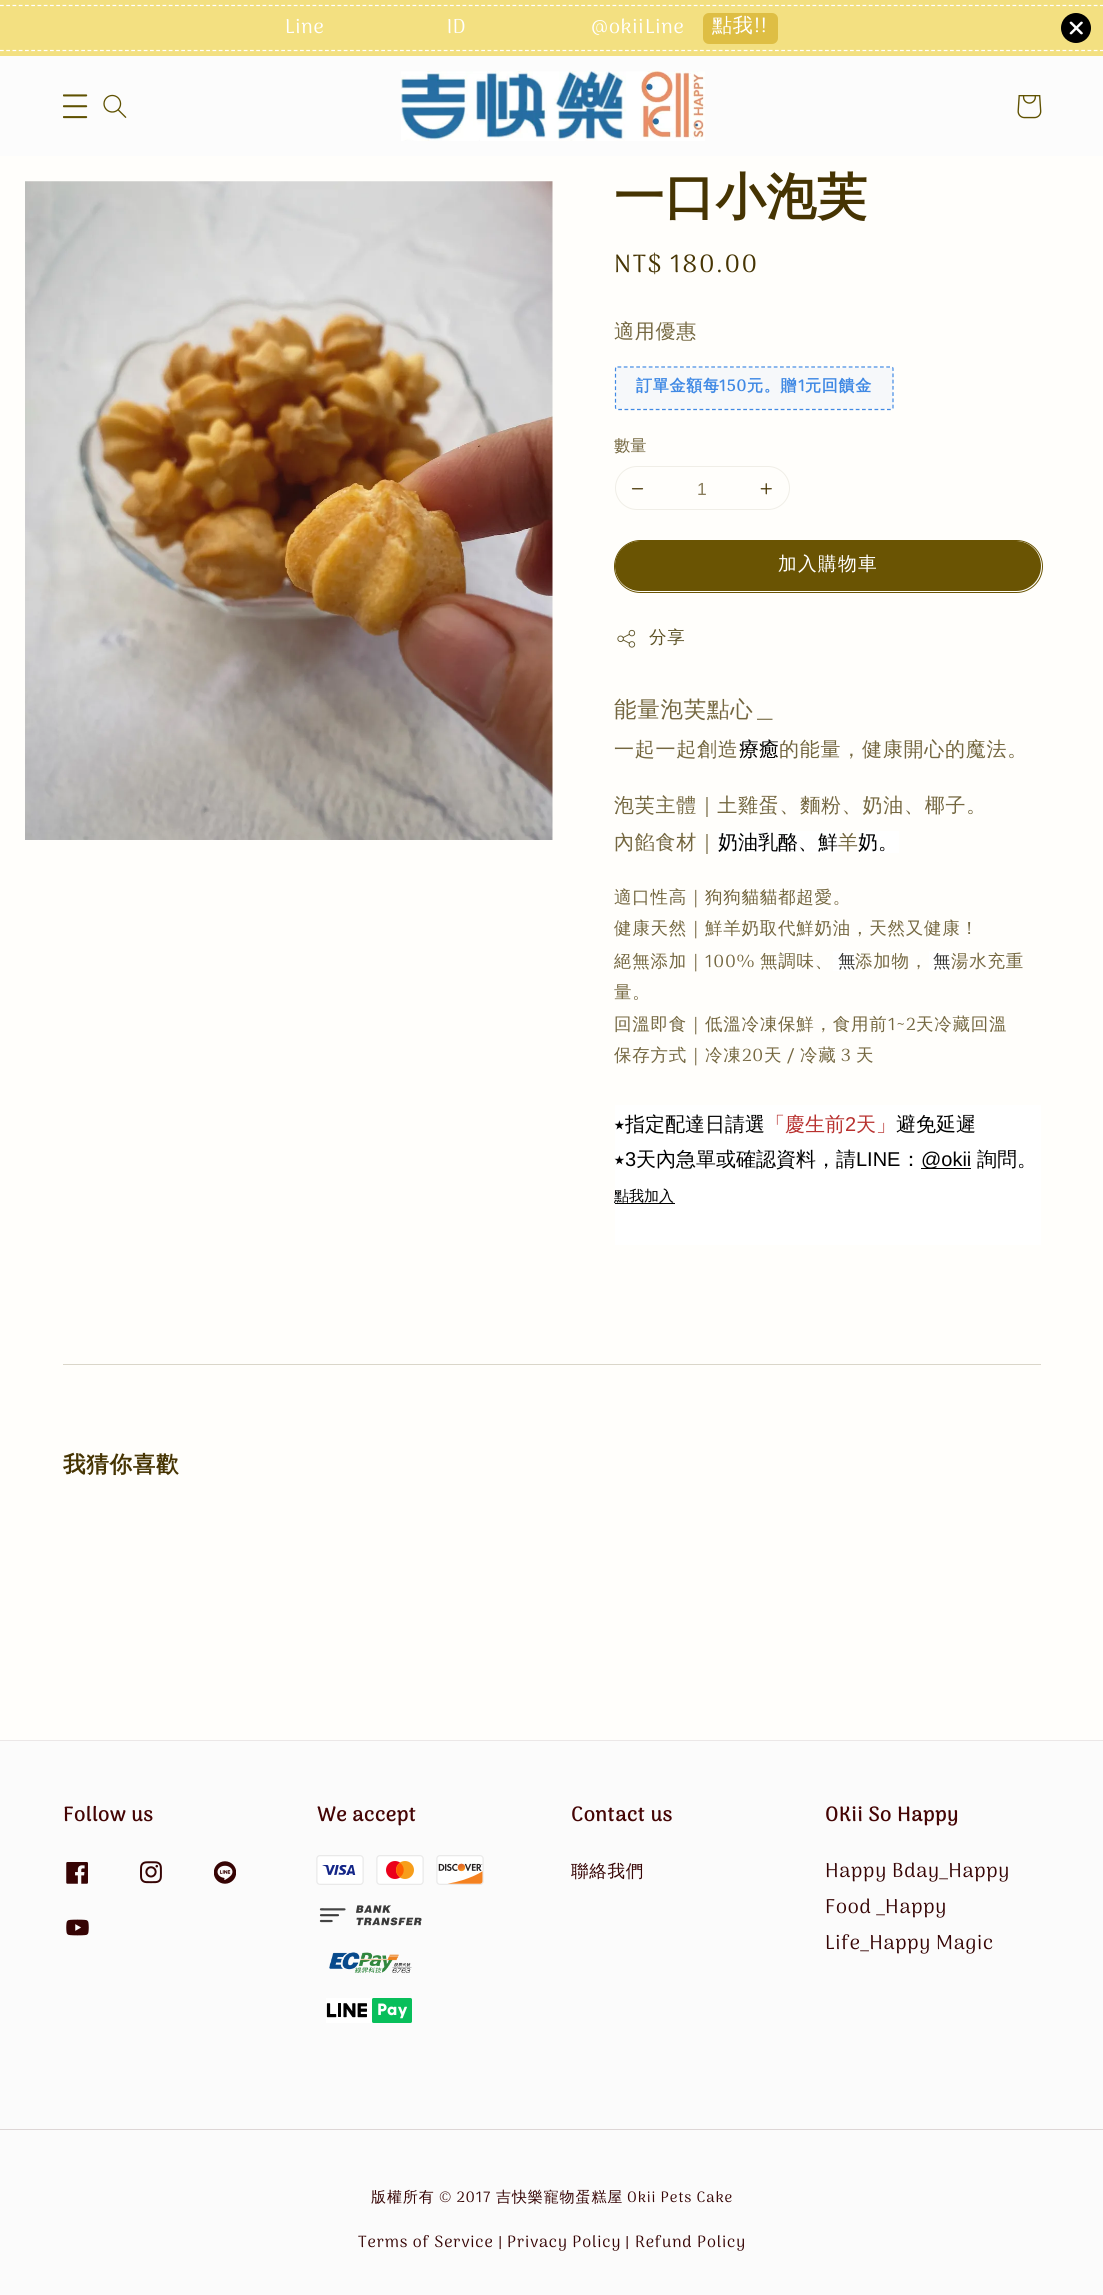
#include <cairo.h>
#include <math.h>
#include <stddef.h>

static cairo_t *ctx;

static void use_color(int r, int g, int b) {
    cairo_set_source_rgb(ctx, r / 255.0, g / 255.0, b / 255.0);
}

static void spaced_text(double x, double y, const char *s, double letter, double word) {
    cairo_move_to(ctx, x, y);
    while (*s) {
        char ch[5] = {0};
        int n = 0;
        do ch[n++] = *s++; while ((*s & 0xC0) == 0x80);
        cairo_show_text(ctx, ch);
        cairo_rel_move_to(ctx, letter + word * (*ch == ' '), 0);
    }
}

static void round_rect(double x, double y, double w, double h, double r) {
    cairo_new_sub_path(ctx);
    cairo_arc(ctx, x + w - r, y + h - r, r, 0, M_PI / 2);
    cairo_arc(ctx, x + r, y + h - r, r, M_PI / 2, M_PI);
    cairo_arc(ctx, x + r, y + r, r, M_PI, 1.5 * M_PI);
    cairo_arc(ctx, x + w - r, y + r, r, 1.5 * M_PI, 2 * M_PI);
    cairo_close_path(ctx);
}

static void picture(const char *path, double x, double y, double w, double h) {
    cairo_surface_t *image = cairo_image_surface_create_from_png(path);
    cairo_save(ctx);
    cairo_set_source_surface(ctx, image, x, y);
    cairo_rectangle(ctx, x, y, w, h);
    cairo_fill(ctx);
    cairo_restore(ctx);
    cairo_surface_destroy(image);
}

int main(void) {
    cairo_surface_t *surface = cairo_image_surface_create(CAIRO_FORMAT_RGB24, 1103, 2295);
    ctx = cairo_create(surface);
    cairo_font_options_t *options = cairo_font_options_create();
    cairo_font_options_set_hint_metrics(options, CAIRO_HINT_METRICS_OFF);
    cairo_font_options_set_hint_style(options, CAIRO_HINT_STYLE_NONE);
    cairo_set_font_options(ctx, options);
    cairo_set_miter_limit(ctx, 4);
    use_color(255, 254, 251);
    cairo_paint(ctx);
    use_color(243, 224, 129);
    cairo_rectangle(ctx, 0, 0, 1103, 56);
    cairo_fill(ctx);
    cairo_new_path(ctx);
    cairo_move_to(ctx, 0, 5.5);
    cairo_line_to(ctx, 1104, 5.5);
    use_color(255, 255, 255);
    cairo_set_line_width(ctx, 1.2);
    cairo_set_dash(ctx, (double[]){3.75, 2.5}, 2, 0);
    cairo_stroke(ctx);
    cairo_new_path(ctx);
    cairo_move_to(ctx, 0, 50.5);
    cairo_line_to(ctx, 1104, 50.5);
    cairo_stroke(ctx);
    cairo_select_font_face(ctx, "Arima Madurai", CAIRO_FONT_SLANT_NORMAL, CAIRO_FONT_WEIGHT_NORMAL);
    cairo_set_font_size(ctx, 20);
    spaced_text(285, 33, "Line ID", 0.75, 117);
    spaced_text(591, 33, "@okii", 0.75, 0);
    spaced_text(645, 33, "Line", 0.75, 0);
    use_color(222, 190, 68);
    round_rect(703, 13, 75, 31, 6);
    cairo_fill(ctx);
    cairo_select_font_face(ctx, "WenQuanYi Zen Hei Medium", CAIRO_FONT_SLANT_NORMAL, CAIRO_FONT_WEIGHT_NORMAL);
    use_color(255, 255, 255);
    spaced_text(712, 32, "點我", 0.75, 0);
    cairo_select_font_face(ctx, "Arima Madurai", CAIRO_FONT_SLANT_NORMAL, CAIRO_FONT_WEIGHT_NORMAL);
    spaced_text(754, 32, "!!", 0.75, 0);
    use_color(0, 0, 0);
    cairo_new_path(ctx);
    cairo_arc(ctx, 1076, 28, 15, 0, 2 * M_PI);
    cairo_fill(ctx);
    use_color(255, 255, 255);
    cairo_new_path(ctx);
    cairo_move_to(ctx, 1082.5, 22);
    cairo_curve_to(ctx, 1083, 22.5, 1083, 23, 1082.5, 23.5);
    cairo_line_to(ctx, 1072, 34);
    cairo_curve_to(ctx, 1071.5, 34.5, 1070.5, 34.5, 1070, 34);
    cairo_curve_to(ctx, 1069.5, 33.5, 1069.5, 33, 1070, 32.5);
    cairo_line_to(ctx, 1080.5, 22);
    cairo_curve_to(ctx, 1081, 21.5, 1082, 21.5, 1082.5, 22);
    cairo_close_path(ctx);
    cairo_fill(ctx);
    cairo_new_path(ctx);
    cairo_move_to(ctx, 1070, 22);
    cairo_curve_to(ctx, 1070.5, 21.5, 1071.5, 21.5, 1072, 22);
    cairo_line_to(ctx, 1082.5, 32.5);
    cairo_curve_to(ctx, 1083, 33, 1083, 33.5, 1082.5, 34);
    cairo_curve_to(ctx, 1082, 34.5, 1081, 34.5, 1080.5, 34);
    cairo_line_to(ctx, 1070, 23.5);
    cairo_curve_to(ctx, 1069.5, 23, 1069.5, 22.5, 1070, 22);
    cairo_close_path(ctx);
    cairo_fill(ctx);
    use_color(252, 252, 252);
    cairo_rectangle(ctx, 0, 56, 1103, 100);
    cairo_fill(ctx);
    picture("img1.png", 63, 94, 25, 25);
    picture("img2.png", 103, 94, 24, 24);
    picture("img3.png", 401, 71, 304, 70);
    picture("img4.png", 1017, 95, 25, 24);
    picture("img5.png", 25, 181, 528, 659);
    cairo_select_font_face(ctx, "WenQuanYi Zen Hei", CAIRO_FONT_SLANT_NORMAL, CAIRO_FONT_WEIGHT_BOLD);
    cairo_set_font_size(ctx, 50);
    use_color(70, 52, 2);
    spaced_text(614, 214, "一口小泡芙", 0.75, 0);
    cairo_select_font_face(ctx, "Arima Madurai", CAIRO_FONT_SLANT_NORMAL, CAIRO_FONT_WEIGHT_NORMAL);
    cairo_set_font_size(ctx, 25);
    spaced_text(614, 272, "NT$ 180.00", 1.6, 0);
    cairo_select_font_face(ctx, "WenQuanYi Zen Hei Medium", CAIRO_FONT_SLANT_NORMAL, CAIRO_FONT_WEIGHT_NORMAL);
    cairo_set_font_size(ctx, 20);
    use_color(116, 103, 64);
    spaced_text(614, 338, "適用優惠", 0.75, 0);
    cairo_new_path(ctx);
    cairo_move_to(ctx, 617.5, 367);
    cairo_line_to(ctx, 891, 367);
    cairo_curve_to(ctx, 892.5, 367, 893, 367.5, 893, 369);
    cairo_line_to(ctx, 893, 407.5);
    cairo_curve_to(ctx, 893, 408.5, 892.5, 409.5, 891, 409.5);
    cairo_line_to(ctx, 617.5, 409.5);
    cairo_curve_to(ctx, 616.5, 409.5, 615.5, 408.5, 615.5, 407.5);
    cairo_line_to(ctx, 615.5, 369);
    cairo_curve_to(ctx, 615.5, 367.5, 616.5, 367, 617.5, 367);
    cairo_close_path(ctx);
    use_color(64, 137, 228);
    cairo_stroke(ctx);
    cairo_set_source_rgba(ctx, 0.251, 0.537, 0.894, 0.05);
    cairo_rectangle(ctx, 616, 368, 277, 41);
    cairo_fill(ctx);
    cairo_select_font_face(ctx, "WenQuanYi Zen Hei", CAIRO_FONT_SLANT_NORMAL, CAIRO_FONT_WEIGHT_BOLD);
    cairo_set_font_size(ctx, 16);
    use_color(64, 137, 228);
    spaced_text(636, 391, "訂單金額每", 0.75, 0);
    cairo_select_font_face(ctx, "Arima Madurai", CAIRO_FONT_SLANT_NORMAL, CAIRO_FONT_WEIGHT_BOLD);
    spaced_text(719, 391, "150", 0.75, 0);
    cairo_select_font_face(ctx, "WenQuanYi Zen Hei", CAIRO_FONT_SLANT_NORMAL, CAIRO_FONT_WEIGHT_BOLD);
    spaced_text(747, 391, "元。贈", 0.75, 0);
    cairo_select_font_face(ctx, "Arima Madurai", CAIRO_FONT_SLANT_NORMAL, CAIRO_FONT_WEIGHT_BOLD);
    spaced_text(798, 391, "1", 0.75, 0);
    cairo_select_font_face(ctx, "WenQuanYi Zen Hei", CAIRO_FONT_SLANT_NORMAL, CAIRO_FONT_WEIGHT_BOLD);
    spaced_text(805, 391, "元回饋金", 0.75, 0);
    cairo_select_font_face(ctx, "WenQuanYi Zen Hei Medium", CAIRO_FONT_SLANT_NORMAL, CAIRO_FONT_WEIGHT_NORMAL);
    cairo_set_font_size(ctx, 16.25);
    use_color(116, 103, 64);
    cairo_move_to(ctx, 614, 451);
    cairo_show_text(ctx, "數量");
    round_rect(615.5, 466.5, 174, 43, 21.5);
    use_color(240, 238, 231);
    cairo_set_line_width(ctx, 1);
    cairo_set_dash(ctx, NULL, 0, 0);
    cairo_stroke(ctx);
    picture("img6.png", 631, 488, 13, 2);
    cairo_select_font_face(ctx, "Liberation Sans", CAIRO_FONT_SLANT_NORMAL, CAIRO_FONT_WEIGHT_NORMAL);
    cairo_set_font_size(ctx, 17.5);
    use_color(137, 125, 92);
    cairo_move_to(ctx, 697, 495);
    cairo_show_text(ctx, "1");
    picture("img7.png", 760, 483, 12, 12);
    round_rect(614.5, 540.5, 428, 52, 26);
    use_color(106, 84, 3);
    cairo_stroke(ctx);
    round_rect(615, 541, 426, 50, 25);
    cairo_fill(ctx);
    cairo_select_font_face(ctx, "WenQuanYi Zen Hei Medium", CAIRO_FONT_SLANT_NORMAL, CAIRO_FONT_WEIGHT_NORMAL);
    cairo_set_font_size(ctx, 18.75);
    use_color(255, 255, 255);
    spaced_text(778, 570, "加入購物車", 1.25, 0);
    picture("img8.png", 617, 629, 19, 19);
    cairo_set_font_size(ctx, 17.5);
    use_color(94, 83, 39);
    spaced_text(649, 643, "分享", 0.75, 0);
    cairo_set_font_size(ctx, 22.5);
    use_color(116, 103, 64);
    spaced_text(614, 717, "能量泡芙點心＿", 0.75, 0);
    cairo_set_font_size(ctx, 20);
    spaced_text(614, 756, "一起一起創造", 0.75, 0);
    use_color(0, 0, 0);
    cairo_move_to(ctx, 739, 756);
    cairo_show_text(ctx, "療癒");
    use_color(116, 103, 64);
    spaced_text(779, 756, "的能量，健康開心的魔法。", 0.75, 0);
    spaced_text(614, 812, "泡芙主體｜土雞蛋、麵粉、奶油、椰子。", 0.75, 0);
    spaced_text(614, 849, "內餡食材｜", 0.75, 0);
    use_color(255, 255, 255);
    cairo_rectangle(ctx, 718, 831, 120, 22);
    cairo_fill(ctx);
    use_color(0, 0, 0);
    cairo_move_to(ctx, 718, 849);
    cairo_show_text(ctx, "奶油乳酪、鮮");
    use_color(116, 103, 64);
    spaced_text(838, 849, "羊", 0.75, 0);
    use_color(255, 255, 255);
    cairo_rectangle(ctx, 859, 831, 40, 22);
    cairo_fill(ctx);
    use_color(0, 0, 0);
    cairo_move_to(ctx, 858, 849);
    cairo_show_text(ctx, "奶。");
    cairo_set_font_size(ctx, 17.5);
    use_color(116, 103, 64);
    spaced_text(614, 903, "適口性高｜狗狗貓貓都超愛。", 0.75, 0);
    spaced_text(614, 934, "健康天然｜鮮羊奶取代鮮奶油，天然又健康！", 0.75, 0);
    spaced_text(614, 967, "絕無添加｜", 0.75, 0);
    cairo_select_font_face(ctx, "Arima Madurai", CAIRO_FONT_SLANT_NORMAL, CAIRO_FONT_WEIGHT_NORMAL);
    spaced_text(705, 967, "100%", 0.75, 0);
    cairo_select_font_face(ctx, "WenQuanYi Zen Hei Medium", CAIRO_FONT_SLANT_NORMAL, CAIRO_FONT_WEIGHT_NORMAL);
    spaced_text(760, 967, "無調味、", 0.75, 0);
    use_color(255, 255, 255);
    cairo_rectangle(ctx, 833, 951, 22, 20);
    cairo_fill(ctx);
    use_color(51, 51, 51);
    cairo_move_to(ctx, 838, 967);
    cairo_show_text(ctx, "無");
    use_color(116, 103, 64);
    spaced_text(855, 967, "添加物，", 0.75, 0);
    use_color(255, 255, 255);
    cairo_rectangle(ctx, 929, 951, 22, 20);
    cairo_fill(ctx);
    use_color(51, 51, 51);
    cairo_move_to(ctx, 933, 967);
    cairo_show_text(ctx, "無");
    use_color(116, 103, 64);
    spaced_text(951, 967, "湯水充重", 0.75, 0);
    spaced_text(614, 998, "量。", 0.75, 0);
    spaced_text(614, 1030, "回溫即食｜低溫冷凍保鮮，食用前", 0.75, 0);
    cairo_select_font_face(ctx, "Arima Madurai", CAIRO_FONT_SLANT_NORMAL, CAIRO_FONT_WEIGHT_NORMAL);
    spaced_text(888, 1030, "1~2", 0.75, 0);
    cairo_select_font_face(ctx, "WenQuanYi Zen Hei Medium", CAIRO_FONT_SLANT_NORMAL, CAIRO_FONT_WEIGHT_NORMAL);
    spaced_text(916, 1030, "天冷藏回溫", 0.75, 0);
    spaced_text(614, 1061, "保存方式｜冷凍", 0.75, 0);
    cairo_select_font_face(ctx, "Arima Madurai", CAIRO_FONT_SLANT_NORMAL, CAIRO_FONT_WEIGHT_NORMAL);
    spaced_text(742, 1061, "20", 0.75, 0);
    cairo_select_font_face(ctx, "WenQuanYi Zen Hei Medium", CAIRO_FONT_SLANT_NORMAL, CAIRO_FONT_WEIGHT_NORMAL);
    spaced_text(764, 1061, "天", 0.75, 0);
    cairo_select_font_face(ctx, "Arima Madurai", CAIRO_FONT_SLANT_NORMAL, CAIRO_FONT_WEIGHT_NORMAL);
    spaced_text(787, 1061, "/", 0.75, 0);
    cairo_select_font_face(ctx, "WenQuanYi Zen Hei Medium", CAIRO_FONT_SLANT_NORMAL, CAIRO_FONT_WEIGHT_NORMAL);
    spaced_text(800, 1061, "冷藏", 0.75, 0);
    cairo_select_font_face(ctx, "Arima Madurai", CAIRO_FONT_SLANT_NORMAL, CAIRO_FONT_WEIGHT_NORMAL);
    spaced_text(841, 1061, "3", 0.75, 0);
    cairo_select_font_face(ctx, "WenQuanYi Zen Hei Medium", CAIRO_FONT_SLANT_NORMAL, CAIRO_FONT_WEIGHT_NORMAL);
    spaced_text(856, 1061, "天", 0.75, 0);
    use_color(255, 255, 255);
    cairo_rectangle(ctx, 615, 1105, 426, 140);
    cairo_fill(ctx);
    cairo_select_font_face(ctx, "FreeSans", CAIRO_FONT_SLANT_NORMAL, CAIRO_FONT_WEIGHT_NORMAL);
    cairo_set_font_size(ctx, 20);
    use_color(0, 0, 0);
    cairo_move_to(ctx, 614, 1131);
    cairo_show_text(ctx, "⭑");
    cairo_select_font_face(ctx, "WenQuanYi Zen Hei Medium", CAIRO_FONT_SLANT_NORMAL, CAIRO_FONT_WEIGHT_NORMAL);
    cairo_move_to(ctx, 625, 1131);
    cairo_show_text(ctx, "指定配達日請選");
    use_color(184, 49, 47);
    cairo_move_to(ctx, 765, 1131);
    cairo_show_text(ctx, "「慶生前");
    cairo_select_font_face(ctx, "Liberation Sans", CAIRO_FONT_SLANT_NORMAL, CAIRO_FONT_WEIGHT_NORMAL);
    cairo_move_to(ctx, 845, 1131);
    cairo_show_text(ctx, "2");
    cairo_select_font_face(ctx, "WenQuanYi Zen Hei Medium", CAIRO_FONT_SLANT_NORMAL, CAIRO_FONT_WEIGHT_NORMAL);
    cairo_move_to(ctx, 856, 1131);
    cairo_show_text(ctx, "天」");
    use_color(0, 0, 0);
    cairo_move_to(ctx, 896, 1131);
    cairo_show_text(ctx, "避免延遲");
    cairo_select_font_face(ctx, "FreeSans", CAIRO_FONT_SLANT_NORMAL, CAIRO_FONT_WEIGHT_NORMAL);
    cairo_move_to(ctx, 614, 1166);
    cairo_show_text(ctx, "⭑");
    cairo_select_font_face(ctx, "Liberation Sans", CAIRO_FONT_SLANT_NORMAL, CAIRO_FONT_WEIGHT_NORMAL);
    cairo_move_to(ctx, 625, 1166);
    cairo_show_text(ctx, "3");
    cairo_select_font_face(ctx, "WenQuanYi Zen Hei Medium", CAIRO_FONT_SLANT_NORMAL, CAIRO_FONT_WEIGHT_NORMAL);
    cairo_move_to(ctx, 636, 1166);
    cairo_show_text(ctx, "天內急單或確認資料，請");
    cairo_select_font_face(ctx, "Liberation Sans", CAIRO_FONT_SLANT_NORMAL, CAIRO_FONT_WEIGHT_NORMAL);
    cairo_move_to(ctx, 856, 1166);
    cairo_show_text(ctx, "LINE");
    cairo_select_font_face(ctx, "WenQuanYi Zen Hei Medium", CAIRO_FONT_SLANT_NORMAL, CAIRO_FONT_WEIGHT_NORMAL);
    cairo_move_to(ctx, 901, 1166);
    cairo_show_text(ctx, "：");
    cairo_rectangle(ctx, 921, 1168, 50, 1);
    cairo_fill(ctx);
    cairo_select_font_face(ctx, "Liberation Sans", CAIRO_FONT_SLANT_NORMAL, CAIRO_FONT_WEIGHT_NORMAL);
    cairo_move_to(ctx, 921, 1166);
    cairo_show_text(ctx, "@okii");
    cairo_select_font_face(ctx, "WenQuanYi Zen Hei Medium", CAIRO_FONT_SLANT_NORMAL, CAIRO_FONT_WEIGHT_NORMAL);
    cairo_move_to(ctx, 977, 1166);
    cairo_show_text(ctx, "詢問。");
    cairo_rectangle(ctx, 615, 1203, 60, 1);
    cairo_fill(ctx);
    cairo_set_font_size(ctx, 15);
    cairo_move_to(ctx, 614, 1201);
    cairo_show_text(ctx, "點我加入");
    use_color(218, 214, 201);
    cairo_rectangle(ctx, 63, 1364, 978, 1);
    cairo_fill(ctx);
    cairo_select_font_face(ctx, "WenQuanYi Zen Hei", CAIRO_FONT_SLANT_NORMAL, CAIRO_FONT_WEIGHT_BOLD);
    cairo_set_font_size(ctx, 22.5);
    use_color(70, 52, 2);
    spaced_text(63, 1472, "我猜你喜歡", 0.75, 0);
    use_color(251, 251, 251);
    cairo_rectangle(ctx, 0, 1741, 1103, 554);
    cairo_fill(ctx);
    use_color(235, 231, 231);
    cairo_rectangle(ctx, 0, 1740, 1103, 1);
    cairo_fill(ctx);
    cairo_select_font_face(ctx, "Arima Madurai", CAIRO_FONT_SLANT_NORMAL, CAIRO_FONT_WEIGHT_BOLD);
    cairo_set_font_size(ctx, 20);
    use_color(68, 4, 4);
    spaced_text(63, 1821, "Follow us", 0.75, 0);
    picture("img9.png", 66, 1862, 22, 22);
    picture("img10.png", 140, 1861, 22, 23);
    picture("img11.png", 214, 1861, 22, 23);
    picture("img12.png", 66, 1919, 23, 17);
    spaced_text(317, 1821, "We accept", 0.75, 0);
    picture("img13.png", 316, 1855, 48, 30);
    picture("img14.png", 376, 1855, 48, 30);
    picture("img15.png", 436, 1855, 48, 30);
    picture("img16.png", 319, 1905, 103, 21);
    picture("img17.png", 329, 1952, 83, 21);
    picture("img18.png", 326, 1998, 86, 25);
    spaced_text(571, 1821, "Contact us", 0.75, 0);
    cairo_select_font_face(ctx, "WenQuanYi Zen Hei Medium", CAIRO_FONT_SLANT_NORMAL, CAIRO_FONT_WEIGHT_NORMAL);
    cairo_set_font_size(ctx, 17.5);
    use_color(54, 4, 4);
    spaced_text(571, 1877, "聯絡我們", 0.75, 0);
    cairo_select_font_face(ctx, "Arima Madurai", CAIRO_FONT_SLANT_NORMAL, CAIRO_FONT_WEIGHT_BOLD);
    cairo_set_font_size(ctx, 20);
    use_color(68, 4, 4);
    spaced_text(825, 1821, "OKii So Happy", 0.75, 0);
    cairo_select_font_face(ctx, "Arima Madurai", CAIRO_FONT_SLANT_NORMAL, CAIRO_FONT_WEIGHT_NORMAL);
    use_color(54, 4, 4);
    spaced_text(825, 1877, "Happy Bday_Happy", 0.75, 0);
    spaced_text(825, 1913, "Food _Happy", 0.75, 0);
    spaced_text(825, 1949, "Life_Happy Magic", 0.75, 0);
    use_color(221, 214, 214);
    cairo_rectangle(ctx, 0, 2129, 1103, 1);
    cairo_fill(ctx);
    cairo_select_font_face(ctx, "WenQuanYi Zen Hei Medium", CAIRO_FONT_SLANT_NORMAL, CAIRO_FONT_WEIGHT_NORMAL);
    cairo_set_font_size(ctx, 15);
    use_color(54, 4, 4);
    spaced_text(371, 2202, "版權所有", 0.9, 0);
    cairo_select_font_face(ctx, "Arima Madurai", CAIRO_FONT_SLANT_NORMAL, CAIRO_FONT_WEIGHT_NORMAL);
    spaced_text(439, 2202, "© 2017", 0.9, 0);
    cairo_select_font_face(ctx, "WenQuanYi Zen Hei Medium", CAIRO_FONT_SLANT_NORMAL, CAIRO_FONT_WEIGHT_NORMAL);
    spaced_text(496, 2202, "吉快樂寵物蛋糕屋", 0.9, 0);
    cairo_select_font_face(ctx, "Arima Madurai", CAIRO_FONT_SLANT_NORMAL, CAIRO_FONT_WEIGHT_NORMAL);
    spaced_text(627, 2202, "Okii Pets Cake", 0.9, 0);
    cairo_set_font_size(ctx, 16.25);
    spaced_text(358, 2247, "Terms of Service", 0.9, 0);
    cairo_set_font_size(ctx, 15);
    spaced_text(498, 2247, "|", 0.9, 0);
    cairo_set_font_size(ctx, 16.25);
    spaced_text(507, 2247, "Privacy Policy", 0.9, 0);
    cairo_set_font_size(ctx, 15);
    spaced_text(625, 2247, "|", 0.9, 0);
    cairo_set_font_size(ctx, 16.25);
    spaced_text(635, 2247, "Refund Policy", 0.9, 0);
    cairo_surface_write_to_png(surface, "result.png");
    cairo_font_options_destroy(options);
    cairo_destroy(ctx);
    cairo_surface_destroy(surface);
    return 0;
}
